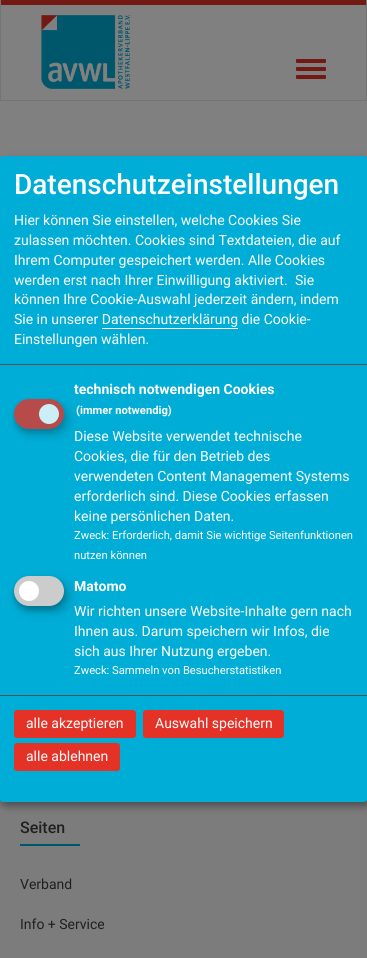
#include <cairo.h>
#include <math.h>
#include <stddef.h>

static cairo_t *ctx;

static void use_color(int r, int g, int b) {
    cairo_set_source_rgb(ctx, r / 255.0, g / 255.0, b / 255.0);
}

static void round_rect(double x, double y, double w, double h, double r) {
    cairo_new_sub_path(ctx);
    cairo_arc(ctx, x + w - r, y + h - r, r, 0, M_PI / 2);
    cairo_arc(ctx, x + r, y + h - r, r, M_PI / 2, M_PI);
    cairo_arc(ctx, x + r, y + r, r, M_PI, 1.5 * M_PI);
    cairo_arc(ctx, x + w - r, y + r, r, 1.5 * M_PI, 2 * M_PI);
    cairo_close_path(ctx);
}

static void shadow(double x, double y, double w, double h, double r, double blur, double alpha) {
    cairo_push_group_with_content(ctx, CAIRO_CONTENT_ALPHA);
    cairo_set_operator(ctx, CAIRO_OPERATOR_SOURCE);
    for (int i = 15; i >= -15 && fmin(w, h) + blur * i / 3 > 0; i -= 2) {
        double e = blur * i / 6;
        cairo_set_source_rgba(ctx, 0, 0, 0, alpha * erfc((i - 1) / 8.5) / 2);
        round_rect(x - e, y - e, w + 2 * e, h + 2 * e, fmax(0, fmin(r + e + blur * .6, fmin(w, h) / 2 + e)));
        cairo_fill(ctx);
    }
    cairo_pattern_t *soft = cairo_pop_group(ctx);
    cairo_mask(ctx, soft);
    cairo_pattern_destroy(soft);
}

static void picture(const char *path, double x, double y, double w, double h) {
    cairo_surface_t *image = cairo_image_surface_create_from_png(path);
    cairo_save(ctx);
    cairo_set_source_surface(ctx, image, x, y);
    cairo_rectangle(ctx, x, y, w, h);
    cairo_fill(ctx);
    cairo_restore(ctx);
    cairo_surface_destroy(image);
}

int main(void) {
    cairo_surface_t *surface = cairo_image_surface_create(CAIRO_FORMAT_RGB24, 367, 958);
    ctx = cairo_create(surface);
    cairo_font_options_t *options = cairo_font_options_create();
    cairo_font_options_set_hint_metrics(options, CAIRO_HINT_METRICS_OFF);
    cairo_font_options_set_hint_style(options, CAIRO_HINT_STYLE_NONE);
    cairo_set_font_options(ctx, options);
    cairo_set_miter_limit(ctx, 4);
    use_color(128, 128, 128);
    cairo_paint(ctx);
    use_color(116, 116, 116);
    cairo_rectangle(ctx, 366, 0, 1, 101);
    cairo_fill(ctx);
    cairo_rectangle(ctx, 0, 100, 367, 1);
    cairo_fill(ctx);
    cairo_rectangle(ctx, 0, 0, 1, 101);
    cairo_fill(ctx);
    use_color(114, 25, 20);
    cairo_rectangle(ctx, 1, 0, 365, 5);
    cairo_fill(ctx);
    picture("img1.png", 41, 15, 89, 74);
    round_rect(296, 59, 30, 4, 1);
    cairo_fill(ctx);
    round_rect(296, 67, 30, 4, 1);
    cairo_fill(ctx);
    round_rect(296, 75, 30, 4, 1);
    cairo_fill(ctx);
    use_color(124, 124, 124);
    cairo_rectangle(ctx, 0, 799, 367, 159);
    cairo_fill(ctx);
    use_color(0, 0, 0);
    shadow(5, 161, 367, 646, 3, 5, 0.19);
    shadow(0, 160, 367, 646, 3, 3, 0.2);
    use_color(0, 173, 214);
    round_rect(0, 156, 367, 646, 3);
    cairo_fill(ctx);
    use_color(85, 85, 85);
    cairo_rectangle(ctx, 0, 364, 367, 1);
    cairo_fill(ctx);
    cairo_select_font_face(ctx, "Roboto Medium", CAIRO_FONT_SLANT_NORMAL, CAIRO_FONT_WEIGHT_NORMAL);
    cairo_set_font_size(ctx, 28);
    use_color(255, 255, 255);
    cairo_move_to(ctx, 14, 194);
    cairo_show_text(ctx, "Datenschutzeinstellungen");
    cairo_select_font_face(ctx, "Roboto", CAIRO_FONT_SLANT_NORMAL, CAIRO_FONT_WEIGHT_NORMAL);
    cairo_set_font_size(ctx, 14);
    cairo_move_to(ctx, 14, 225);
    cairo_show_text(ctx, "Hier können Sie einstellen, welche Cookies Sie");
    cairo_move_to(ctx, 14, 245);
    cairo_show_text(ctx, "zulassen möchten. Cookies sind Textdateien, die auf");
    cairo_move_to(ctx, 14, 265);
    cairo_show_text(ctx, "Ihrem Computer gespeichert werden. Alle Cookies");
    cairo_move_to(ctx, 14, 285);
    cairo_show_text(ctx, "werden erst nach Ihrer Einwilligung aktiviert.");
    cairo_move_to(ctx, 295, 285);
    cairo_show_text(ctx, "Sie");
    cairo_move_to(ctx, 14, 304);
    cairo_show_text(ctx, "können Ihre Cookie-Auswahl jederzeit ändern, indem");
    cairo_move_to(ctx, 14, 324);
    cairo_show_text(ctx, "Sie in unserer Datenschutzerklärung die Cookie-");
    cairo_rectangle(ctx, 102, 328, 136, 1);
    cairo_fill(ctx);
    cairo_move_to(ctx, 14, 344);
    cairo_show_text(ctx, "Einstellungen wählen.");
    use_color(0, 0, 0);
    shadow(19, 404, 50, 30, 15, 5, 0.15);
    use_color(0, 35, 43);
    shadow(14, 403, 50, 30, 15, 3, 0.2);
    use_color(182, 75, 74);
    round_rect(14, 399, 50, 30, 15);
    cairo_fill(ctx);
    use_color(204, 239, 247);
    cairo_arc(ctx, 49, 414, 10, 0, 2 * M_PI);
    cairo_fill(ctx);
    cairo_select_font_face(ctx, "Roboto", CAIRO_FONT_SLANT_NORMAL, CAIRO_FONT_WEIGHT_BOLD);
    use_color(255, 255, 255);
    cairo_move_to(ctx, 74, 394);
    cairo_show_text(ctx, "technisch notwendigen Cookies");
    cairo_set_font_size(ctx, 11.2);
    cairo_move_to(ctx, 76, 414);
    cairo_show_text(ctx, "(immer notwendig)");
    cairo_select_font_face(ctx, "Roboto", CAIRO_FONT_SLANT_NORMAL, CAIRO_FONT_WEIGHT_NORMAL);
    cairo_set_font_size(ctx, 14);
    cairo_move_to(ctx, 74, 441);
    cairo_show_text(ctx, "Diese Website verwendet technische");
    cairo_move_to(ctx, 74, 461);
    cairo_show_text(ctx, "Cookies, die für den Betrieb des");
    cairo_move_to(ctx, 74, 481);
    cairo_show_text(ctx, "verwendeten Content Management Systems");
    cairo_move_to(ctx, 74, 501);
    cairo_show_text(ctx, "erforderlich sind. Diese Cookies erfassen");
    cairo_move_to(ctx, 74, 521);
    cairo_show_text(ctx, "keine persönlichen Daten.");
    cairo_set_font_size(ctx, 11.2);
    cairo_move_to(ctx, 74, 539);
    cairo_show_text(ctx, "Zweck: Erforderlich, damit Sie wichtige Seitenfunktionen");
    cairo_move_to(ctx, 74, 559);
    cairo_show_text(ctx, "nutzen können");
    use_color(0, 0, 0);
    shadow(19, 581, 50, 30, 15, 5, 0.19);
    shadow(14, 580, 50, 30, 15, 3, 0.2);
    use_color(204, 204, 204);
    round_rect(14, 576, 50, 30, 15);
    cairo_fill(ctx);
    use_color(255, 255, 255);
    cairo_arc(ctx, 29, 591, 10, 0, 2 * M_PI);
    cairo_fill(ctx);
    cairo_select_font_face(ctx, "Roboto", CAIRO_FONT_SLANT_NORMAL, CAIRO_FONT_WEIGHT_BOLD);
    cairo_set_font_size(ctx, 14);
    cairo_move_to(ctx, 74, 591);
    cairo_show_text(ctx, "Matomo");
    cairo_select_font_face(ctx, "Roboto", CAIRO_FONT_SLANT_NORMAL, CAIRO_FONT_WEIGHT_NORMAL);
    cairo_move_to(ctx, 74, 616);
    cairo_show_text(ctx, "Wir richten unsere Website-Inhalte gern nach");
    cairo_move_to(ctx, 74, 636);
    cairo_show_text(ctx, "Ihnen aus. Darum speichern wir Infos, die");
    cairo_move_to(ctx, 74, 656);
    cairo_show_text(ctx, "sich aus Ihrer Nutzung ergeben.");
    cairo_set_font_size(ctx, 11.2);
    cairo_move_to(ctx, 74, 674);
    cairo_show_text(ctx, "Zweck: Sammeln von Besucherstatistiken");
    use_color(85, 85, 85);
    cairo_rectangle(ctx, 0, 695, 367, 1);
    cairo_fill(ctx);
    use_color(228, 50, 39);
    round_rect(14, 710, 122, 28, 3);
    cairo_fill(ctx);
    cairo_set_font_size(ctx, 14);
    use_color(255, 255, 255);
    cairo_move_to(ctx, 26, 728);
    cairo_show_text(ctx, "alle akzeptieren");
    use_color(228, 50, 39);
    round_rect(143, 710, 141, 28, 3);
    cairo_fill(ctx);
    use_color(255, 255, 255);
    cairo_move_to(ctx, 155, 728);
    cairo_show_text(ctx, "Auswahl speichern");
    use_color(228, 50, 39);
    round_rect(14, 743, 106, 28, 3);
    cairo_fill(ctx);
    use_color(255, 255, 255);
    cairo_move_to(ctx, 26, 761);
    cairo_show_text(ctx, "alle ablehnen");
    cairo_select_font_face(ctx, "Roboto Medium", CAIRO_FONT_SLANT_NORMAL, CAIRO_FONT_WEIGHT_NORMAL);
    cairo_set_font_size(ctx, 16);
    use_color(32, 32, 31);
    cairo_move_to(ctx, 20, 833);
    cairo_show_text(ctx, "Seiten");
    use_color(0, 87, 107);
    cairo_rectangle(ctx, 20, 844, 60, 2);
    cairo_fill(ctx);
    cairo_select_font_face(ctx, "Roboto", CAIRO_FONT_SLANT_NORMAL, CAIRO_FONT_WEIGHT_NORMAL);
    cairo_set_font_size(ctx, 14);
    use_color(32, 32, 31);
    cairo_move_to(ctx, 20, 889);
    cairo_show_text(ctx, "Verband");
    cairo_move_to(ctx, 20, 929);
    cairo_show_text(ctx, "Info + Service");
    cairo_surface_write_to_png(surface, "result.png");
    cairo_font_options_destroy(options);
    cairo_destroy(ctx);
    cairo_surface_destroy(surface);
    return 0;
}
